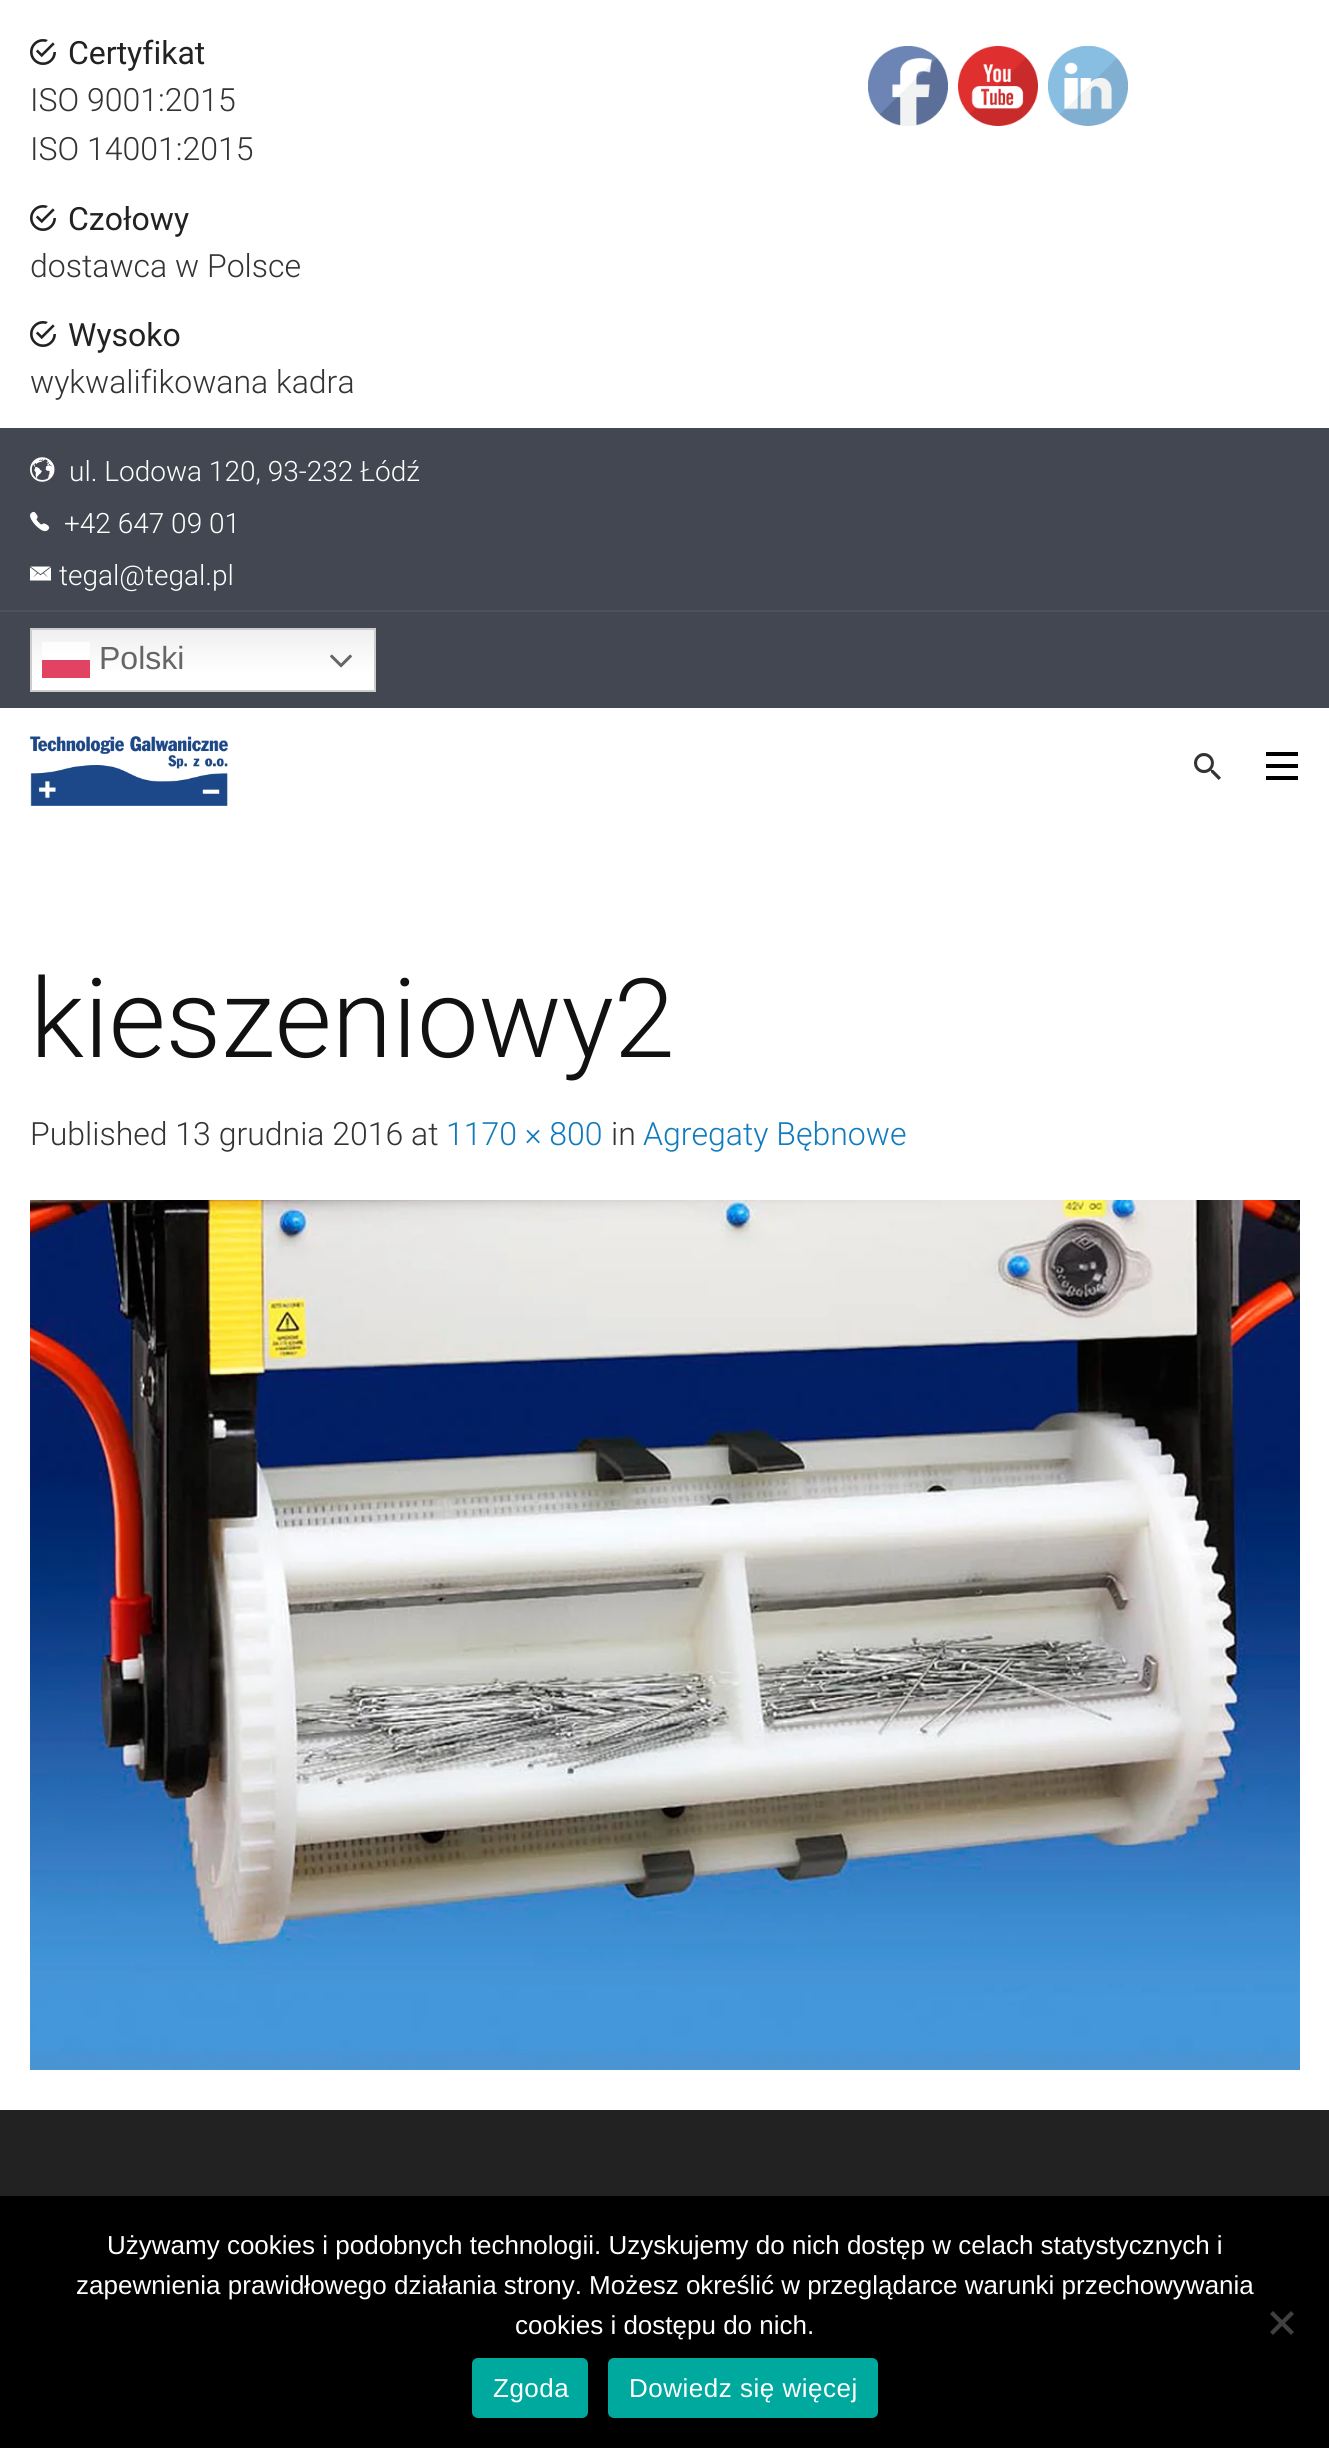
#include <cairo.h>
#include <math.h>
#include <stddef.h>

static cairo_t *ctx;

static void use_color(int r, int g, int b) {
    cairo_set_source_rgb(ctx, r / 255.0, g / 255.0, b / 255.0);
}

static void spaced_text(double x, double y, const char *s, double letter, double word) {
    cairo_move_to(ctx, x, y);
    while (*s) {
        char ch[5] = {0};
        int n = 0;
        do ch[n++] = *s++; while ((*s & 0xC0) == 0x80);
        cairo_show_text(ctx, ch);
        cairo_rel_move_to(ctx, letter + word * (*ch == ' '), 0);
    }
}

static void round_rect(double x, double y, double w, double h, double r) {
    cairo_new_sub_path(ctx);
    cairo_arc(ctx, x + w - r, y + h - r, r, 0, M_PI / 2);
    cairo_arc(ctx, x + r, y + h - r, r, M_PI / 2, M_PI);
    cairo_arc(ctx, x + r, y + r, r, M_PI, 1.5 * M_PI);
    cairo_arc(ctx, x + w - r, y + r, r, 1.5 * M_PI, 2 * M_PI);
    cairo_close_path(ctx);
}

static void picture(const char *path, double x, double y, double w, double h) {
    cairo_surface_t *image = cairo_image_surface_create_from_png(path);
    cairo_save(ctx);
    cairo_set_source_surface(ctx, image, x, y);
    cairo_rectangle(ctx, x, y, w, h);
    cairo_fill(ctx);
    cairo_restore(ctx);
    cairo_surface_destroy(image);
}

int main(void) {
    cairo_surface_t *surface = cairo_image_surface_create(CAIRO_FORMAT_RGB24, 1329, 2448);
    ctx = cairo_create(surface);
    cairo_font_options_t *options = cairo_font_options_create();
    cairo_font_options_set_hint_metrics(options, CAIRO_HINT_METRICS_OFF);
    cairo_font_options_set_hint_style(options, CAIRO_HINT_STYLE_NONE);
    cairo_set_font_options(ctx, options);
    cairo_set_miter_limit(ctx, 4);
    cairo_pattern_t *gradient;
    use_color(255, 255, 255);
    cairo_paint(ctx);
    picture("img1.png", 30, 39, 26, 26);
    cairo_select_font_face(ctx, "Roboto", CAIRO_FONT_SLANT_NORMAL, CAIRO_FONT_WEIGHT_NORMAL);
    cairo_set_font_size(ctx, 32);
    use_color(34, 34, 34);
    cairo_move_to(ctx, 68, 64);
    cairo_show_text(ctx, "Certyfikat");
    cairo_select_font_face(ctx, "Roboto Light", CAIRO_FONT_SLANT_NORMAL, CAIRO_FONT_WEIGHT_NORMAL);
    use_color(51, 51, 51);
    cairo_move_to(ctx, 30, 111);
    cairo_show_text(ctx, "ISO 9001:2015");
    cairo_move_to(ctx, 30, 160);
    cairo_show_text(ctx, "ISO 14001:2015");
    picture("img1.png", 30, 205, 26, 26);
    cairo_select_font_face(ctx, "Roboto", CAIRO_FONT_SLANT_NORMAL, CAIRO_FONT_WEIGHT_NORMAL);
    use_color(34, 34, 34);
    cairo_move_to(ctx, 68, 230);
    cairo_show_text(ctx, "Czołowy");
    cairo_select_font_face(ctx, "Roboto Light", CAIRO_FONT_SLANT_NORMAL, CAIRO_FONT_WEIGHT_NORMAL);
    use_color(51, 51, 51);
    cairo_move_to(ctx, 30, 277);
    cairo_show_text(ctx, "dostawca w Polsce");
    picture("img1.png", 30, 321, 26, 26);
    cairo_select_font_face(ctx, "Roboto", CAIRO_FONT_SLANT_NORMAL, CAIRO_FONT_WEIGHT_NORMAL);
    use_color(34, 34, 34);
    cairo_move_to(ctx, 68, 346);
    cairo_show_text(ctx, "Wysoko");
    cairo_select_font_face(ctx, "Roboto Light", CAIRO_FONT_SLANT_NORMAL, CAIRO_FONT_WEIGHT_NORMAL);
    use_color(51, 51, 51);
    cairo_move_to(ctx, 30, 393);
    cairo_show_text(ctx, "wykwalifikowana kadra");
    use_color(67, 71, 82);
    cairo_rectangle(ctx, 0, 428, 1329, 280);
    cairo_fill(ctx);
    picture("img2.png", 30, 457, 25, 25);
    cairo_set_font_size(ctx, 28);
    use_color(255, 255, 255);
    cairo_move_to(ctx, 69, 481);
    cairo_show_text(ctx, "ul. Lodowa 120, 93-232 Łódź");
    picture("img3.png", 30, 511, 20, 21);
    cairo_move_to(ctx, 64, 533);
    cairo_show_text(ctx, "+42 647 09 01");
    picture("img4.png", 30, 566, 21, 15);
    cairo_move_to(ctx, 59, 585);
    cairo_show_text(ctx, "tegal@tegal.pl");
    use_color(78, 82, 92);
    cairo_rectangle(ctx, 0, 610, 1329, 2);
    cairo_fill(ctx);
    gradient = cairo_pattern_create_linear(203, 628, 203, 692);
    cairo_pattern_add_color_stop_rgba(gradient, 0, 0.937, 0.937, 0.937, 1);
    cairo_pattern_add_color_stop_rgba(gradient, 0.7, 1, 1, 1, 1);
    cairo_set_source(ctx, gradient);
    cairo_pattern_destroy(gradient);
    cairo_rectangle(ctx, 32, 630, 342, 60);
    cairo_fill(ctx);
    gradient = cairo_pattern_create_linear(203, 628, 203, 692);
    cairo_pattern_add_color_stop_rgba(gradient, 0, 0.988, 0.988, 0.988, 1);
    cairo_pattern_add_color_stop_rgba(gradient, 0.7, 1, 1, 1, 1);
    cairo_set_source(ctx, gradient);
    cairo_pattern_destroy(gradient);
    cairo_rectangle(ctx, 42, 642, 48, 18);
    cairo_fill(ctx);
    cairo_rectangle(ctx, 31, 629, 344, 62);
    use_color(204, 204, 204);
    cairo_stroke(ctx);
    use_color(227, 67, 99);
    cairo_rectangle(ctx, 42, 660, 48, 18);
    cairo_fill(ctx);
    cairo_select_font_face(ctx, "Liberation Sans", CAIRO_FONT_SLANT_NORMAL, CAIRO_FONT_WEIGHT_NORMAL);
    cairo_set_font_size(ctx, 32);
    use_color(102, 102, 102);
    cairo_move_to(ctx, 99, 669);
    cairo_show_text(ctx, "Polski");
    picture("img5.png", 330, 654, 22, 14);
    picture("img6.png", 30, 736, 198, 70);
    picture("img7.png", 1194, 753, 27, 27);
    use_color(0, 0, 0);
    cairo_rectangle(ctx, 1266, 752, 32, 4);
    cairo_fill(ctx);
    cairo_rectangle(ctx, 1266, 764, 32, 4);
    cairo_fill(ctx);
    cairo_rectangle(ctx, 1266, 776, 32, 4);
    cairo_fill(ctx);
    cairo_select_font_face(ctx, "Roboto Light", CAIRO_FONT_SLANT_NORMAL, CAIRO_FONT_WEIGHT_NORMAL);
    cairo_set_font_size(ctx, 110);
    use_color(17, 17, 17);
    cairo_move_to(ctx, 30, 1057);
    cairo_show_text(ctx, "kieszeniowy2");
    cairo_set_font_size(ctx, 32);
    use_color(51, 51, 51);
    cairo_move_to(ctx, 30, 1145);
    cairo_show_text(ctx, "Published 13 grudnia 2016 at");
    use_color(17, 122, 188);
    cairo_move_to(ctx, 446, 1145);
    cairo_show_text(ctx, "1170 × 800");
    use_color(51, 51, 51);
    cairo_move_to(ctx, 611, 1145);
    cairo_show_text(ctx, "in");
    use_color(17, 122, 188);
    cairo_move_to(ctx, 643, 1145);
    cairo_show_text(ctx, "Agregaty Bębnowe");
    picture("img8.png", 30, 1200, 1270, 870);
    picture("img9.png", 868, 46, 80, 80);
    picture("img10.png", 958, 46, 80, 80);
    picture("img11.png", 1048, 46, 80, 80);
    use_color(34, 34, 34);
    cairo_rectangle(ctx, 0, 2110, 1329, 86);
    cairo_fill(ctx);
    use_color(0, 0, 0);
    cairo_rectangle(ctx, 0, 2196, 1329, 252);
    cairo_fill(ctx);
    cairo_select_font_face(ctx, "Liberation Sans", CAIRO_FONT_SLANT_NORMAL, CAIRO_FONT_WEIGHT_NORMAL);
    cairo_set_font_size(ctx, 26);
    use_color(255, 255, 255);
    cairo_move_to(ctx, 107, 2254);
    cairo_show_text(ctx, "Używamy cookies i podobnych technologii. Uzyskujemy do nich dostęp w celach statystycznych i");
    cairo_move_to(ctx, 76, 2294);
    cairo_show_text(ctx, "zapewnienia prawidłowego działania strony. Możesz określić w przeglądarce warunki przechowywania");
    cairo_move_to(ctx, 515, 2334);
    cairo_show_text(ctx, "cookies i dostępu do nich.");
    use_color(64, 64, 64);
    cairo_new_path(ctx);
    cairo_move_to(ctx, 1291, 2311);
    cairo_line_to(ctx, 1294, 2314);
    cairo_line_to(ctx, 1273, 2335);
    cairo_line_to(ctx, 1270, 2332);
    cairo_close_path(ctx);
    cairo_fill(ctx);
    cairo_new_path(ctx);
    cairo_move_to(ctx, 1270, 2314);
    cairo_line_to(ctx, 1273, 2311);
    cairo_line_to(ctx, 1294, 2332);
    cairo_line_to(ctx, 1291, 2335);
    cairo_close_path(ctx);
    cairo_fill(ctx);
    use_color(0, 169, 157);
    round_rect(472, 2358, 116, 60, 6);
    cairo_fill(ctx);
    use_color(255, 255, 255);
    spaced_text(493, 2397, "Zgoda", 0.5, 0);
    use_color(0, 169, 157);
    round_rect(608, 2358, 270, 60, 6);
    cairo_fill(ctx);
    use_color(255, 255, 255);
    spaced_text(629, 2397, "Dowiedz się więcej", 0.5, 0);
    cairo_surface_write_to_png(surface, "result.png");
    cairo_font_options_destroy(options);
    cairo_destroy(ctx);
    cairo_surface_destroy(surface);
    return 0;
}
